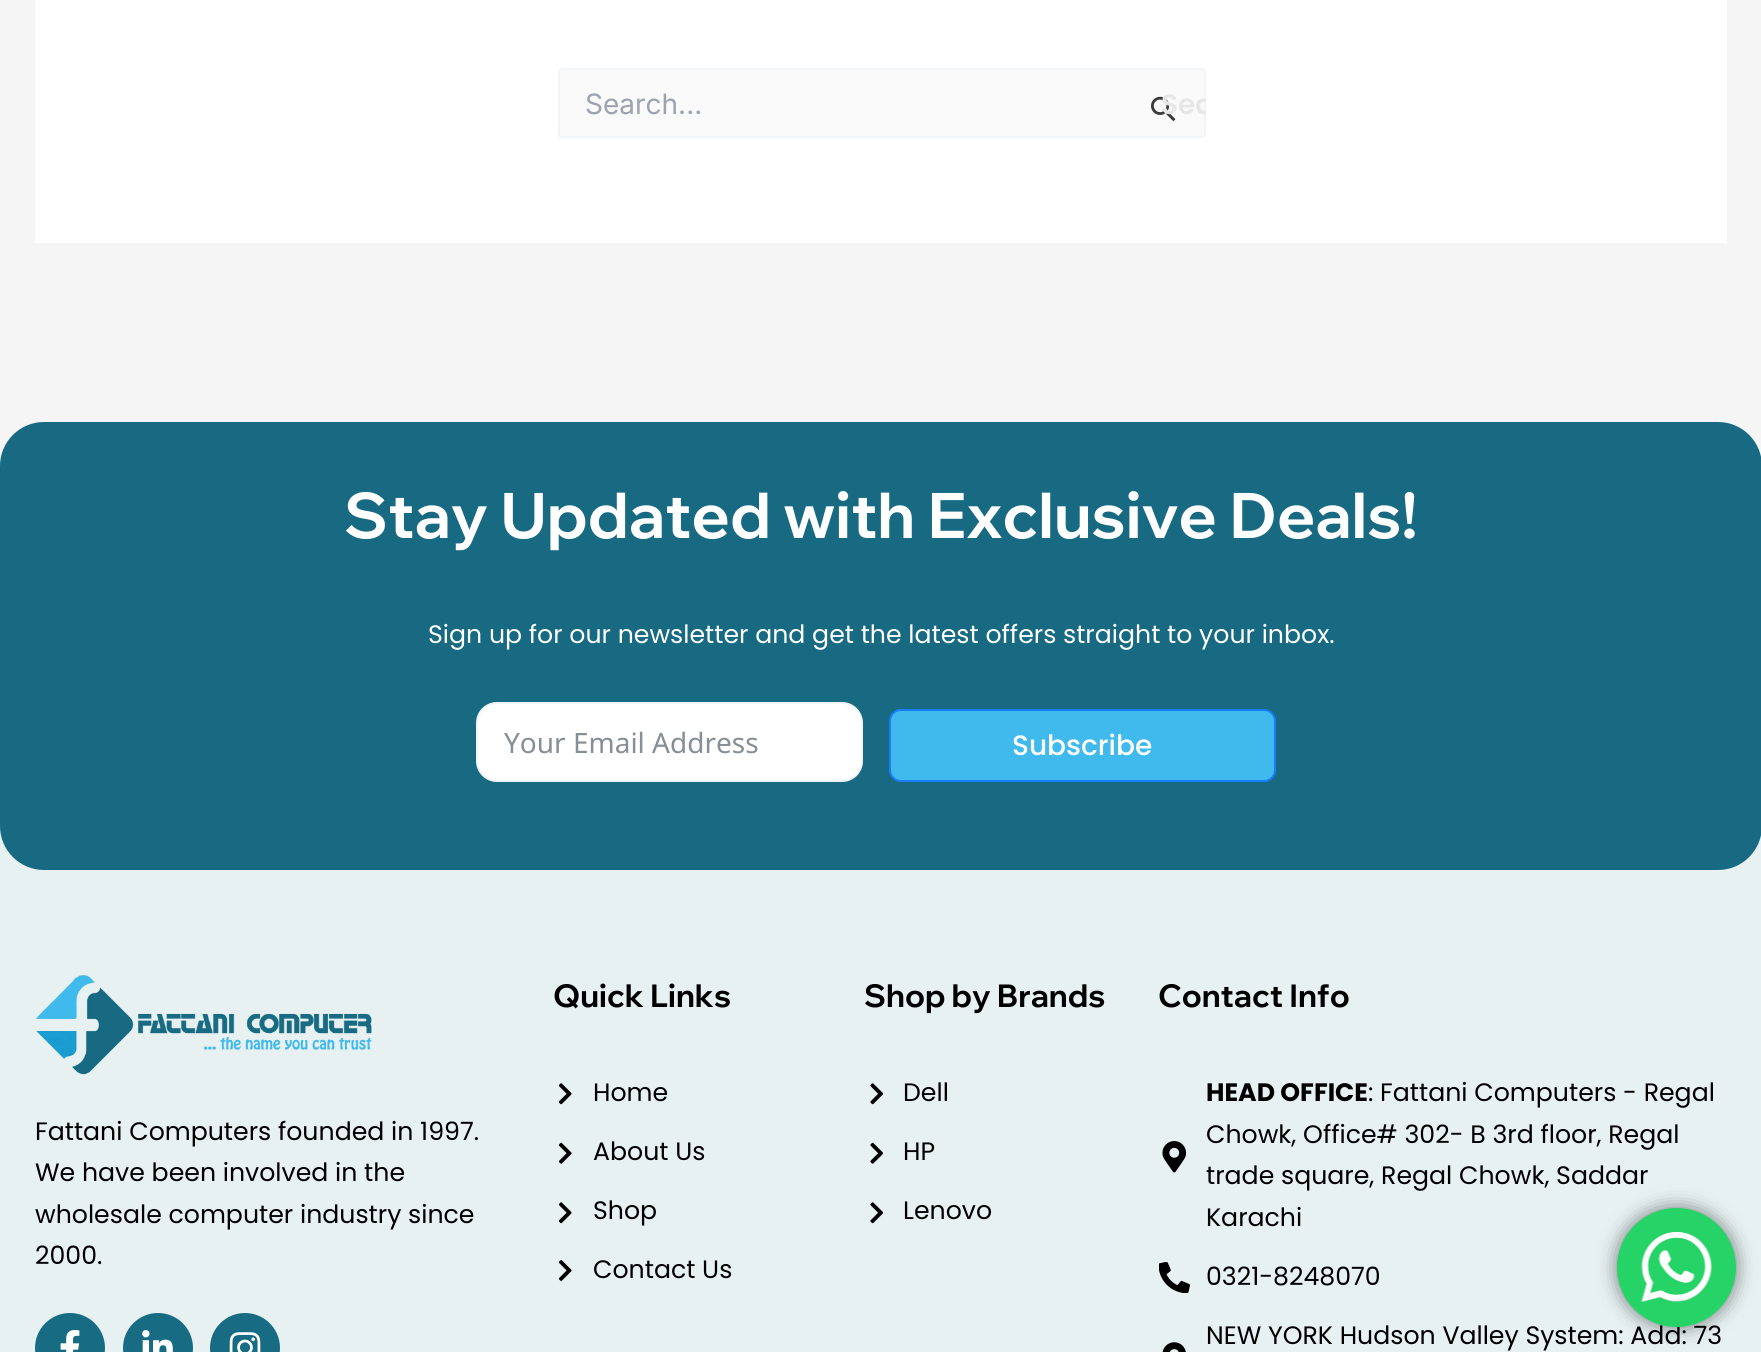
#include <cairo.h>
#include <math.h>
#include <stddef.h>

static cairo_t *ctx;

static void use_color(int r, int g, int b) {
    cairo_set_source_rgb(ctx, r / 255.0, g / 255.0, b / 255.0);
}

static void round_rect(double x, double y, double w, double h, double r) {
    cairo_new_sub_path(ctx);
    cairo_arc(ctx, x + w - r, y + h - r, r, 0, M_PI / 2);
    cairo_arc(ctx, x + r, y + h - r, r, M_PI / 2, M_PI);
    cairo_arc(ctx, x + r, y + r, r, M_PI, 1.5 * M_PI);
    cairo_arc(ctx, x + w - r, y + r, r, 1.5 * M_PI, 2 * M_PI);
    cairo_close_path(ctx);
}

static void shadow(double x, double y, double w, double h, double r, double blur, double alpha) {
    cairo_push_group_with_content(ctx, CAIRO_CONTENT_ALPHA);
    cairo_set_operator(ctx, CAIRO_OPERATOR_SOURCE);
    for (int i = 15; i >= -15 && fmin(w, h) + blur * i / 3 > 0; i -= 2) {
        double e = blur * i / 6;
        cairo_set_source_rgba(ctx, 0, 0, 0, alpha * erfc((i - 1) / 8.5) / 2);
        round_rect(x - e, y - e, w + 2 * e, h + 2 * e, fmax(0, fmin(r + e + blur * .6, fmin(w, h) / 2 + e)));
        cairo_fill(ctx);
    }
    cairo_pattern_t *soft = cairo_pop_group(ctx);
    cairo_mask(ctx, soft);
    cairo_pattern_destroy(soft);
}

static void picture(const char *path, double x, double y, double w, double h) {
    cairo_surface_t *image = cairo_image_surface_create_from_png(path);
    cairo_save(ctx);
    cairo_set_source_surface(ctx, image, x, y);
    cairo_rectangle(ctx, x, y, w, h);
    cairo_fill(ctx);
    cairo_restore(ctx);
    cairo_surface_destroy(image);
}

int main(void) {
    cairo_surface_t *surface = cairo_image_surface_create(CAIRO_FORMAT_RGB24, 1761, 1352);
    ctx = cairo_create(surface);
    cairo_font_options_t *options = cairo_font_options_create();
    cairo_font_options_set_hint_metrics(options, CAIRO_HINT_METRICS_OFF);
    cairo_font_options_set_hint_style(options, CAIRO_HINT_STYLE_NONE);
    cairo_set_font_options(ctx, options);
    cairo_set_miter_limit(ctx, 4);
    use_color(245, 245, 245);
    cairo_paint(ctx);
    use_color(255, 255, 255);
    cairo_rectangle(ctx, 35, 0, 1692, 243);
    cairo_fill(ctx);
    use_color(250, 250, 250);
    round_rect(559, 69, 646, 68, 3);
    cairo_fill_preserve(ctx);
    use_color(242, 245, 247);
    cairo_stroke(ctx);
    cairo_select_font_face(ctx, "Inter", CAIRO_FONT_SLANT_NORMAL, CAIRO_FONT_WEIGHT_NORMAL);
    cairo_set_font_size(ctx, 28);
    use_color(156, 163, 175);
    cairo_move_to(ctx, 585, 114);
    cairo_show_text(ctx, "Search...");
    picture("img1.png", 1151, 96, 25, 26);
    cairo_save(ctx);
    round_rect(1127, 68, 79, 74, 4);
    cairo_clip(ctx);
    cairo_select_font_face(ctx, "Poppins SemiBold", CAIRO_FONT_SLANT_NORMAL, CAIRO_FONT_WEIGHT_NORMAL);
    use_color(231, 231, 231);
    cairo_move_to(ctx, 1161, 114);
    cairo_show_text(ctx, "Sea");
    cairo_restore(ctx);
    use_color(231, 241, 241);
    cairo_rectangle(ctx, 0, 826, 1761, 526);
    cairo_fill(ctx);
    use_color(23, 106, 130);
    round_rect(0, 422, 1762, 448, 44);
    cairo_fill(ctx);
    cairo_select_font_face(ctx, "Wix Madefor Display", CAIRO_FONT_SLANT_NORMAL, CAIRO_FONT_WEIGHT_BOLD);
    cairo_set_font_size(ctx, 63);
    use_color(255, 255, 255);
    cairo_move_to(ctx, 344, 538);
    cairo_show_text(ctx, "Stay Updated with Exclusive Deals!");
    cairo_select_font_face(ctx, "Poppins", CAIRO_FONT_SLANT_NORMAL, CAIRO_FONT_WEIGHT_NORMAL);
    cairo_set_font_size(ctx, 25.2);
    cairo_move_to(ctx, 428, 643);
    cairo_show_text(ctx, "Sign up for our newsletter and get the latest offers straight to your inbox.");
    round_rect(477, 703, 385, 78, 20);
    cairo_fill_preserve(ctx);
    use_color(242, 245, 247);
    cairo_stroke(ctx);
    cairo_select_font_face(ctx, "Noto Sans", CAIRO_FONT_SLANT_NORMAL, CAIRO_FONT_WEIGHT_NORMAL);
    cairo_set_font_size(ctx, 28);
    use_color(134, 142, 150);
    cairo_move_to(ctx, 504, 753);
    cairo_show_text(ctx, "Your Email Address");
    use_color(64, 186, 236);
    round_rect(890, 710, 385, 71, 11);
    cairo_fill_preserve(ctx);
    use_color(26, 126, 251);
    cairo_stroke(ctx);
    cairo_select_font_face(ctx, "Poppins Medium", CAIRO_FONT_SLANT_NORMAL, CAIRO_FONT_WEIGHT_NORMAL);
    use_color(255, 255, 255);
    cairo_move_to(ctx, 1012, 755);
    cairo_show_text(ctx, "Subscribe");
    picture("img2.png", 35, 974, 337, 101);
    cairo_select_font_face(ctx, "Poppins", CAIRO_FONT_SLANT_NORMAL, CAIRO_FONT_WEIGHT_NORMAL);
    cairo_set_font_size(ctx, 25.2);
    use_color(0, 0, 0);
    cairo_move_to(ctx, 35, 1140);
    cairo_show_text(ctx, "Fattani Computers founded in 1997.");
    cairo_move_to(ctx, 35, 1181);
    cairo_show_text(ctx, "We have been involved in the");
    cairo_move_to(ctx, 35, 1223);
    cairo_show_text(ctx, "wholesale computer industry since");
    cairo_move_to(ctx, 35, 1264);
    cairo_show_text(ctx, "2000.");
    use_color(23, 107, 131);
    cairo_new_path(ctx);
    cairo_arc(ctx, 70, 1348, 35, 0, 2 * M_PI);
    cairo_fill(ctx);
    picture("img3.png", 60, 1330, 20, 22);
    cairo_arc(ctx, 158, 1348, 35, 0, 2 * M_PI);
    cairo_fill(ctx);
    picture("img4.png", 142, 1330, 31, 22);
    cairo_arc(ctx, 245, 1348, 35, 0, 2 * M_PI);
    cairo_fill(ctx);
    picture("img5.png", 229, 1332, 32, 20);
    cairo_select_font_face(ctx, "Wix Madefor Display", CAIRO_FONT_SLANT_NORMAL, CAIRO_FONT_WEIGHT_BOLD);
    cairo_set_font_size(ctx, 31.5);
    use_color(0, 0, 0);
    cairo_move_to(ctx, 553, 1007);
    cairo_show_text(ctx, "Quick Links");
    picture("img6.png", 558, 1083, 14, 22);
    cairo_select_font_face(ctx, "Poppins", CAIRO_FONT_SLANT_NORMAL, CAIRO_FONT_WEIGHT_NORMAL);
    cairo_set_font_size(ctx, 25.2);
    cairo_move_to(ctx, 593, 1101);
    cairo_show_text(ctx, "Home");
    picture("img7.png", 558, 1142, 14, 22);
    cairo_move_to(ctx, 593, 1160);
    cairo_show_text(ctx, "About Us");
    picture("img6.png", 558, 1202, 14, 22);
    cairo_move_to(ctx, 593, 1219);
    cairo_show_text(ctx, "Shop");
    picture("img8.png", 558, 1260, 14, 21);
    cairo_move_to(ctx, 593, 1278);
    cairo_show_text(ctx, "Contact Us");
    cairo_select_font_face(ctx, "Wix Madefor Display", CAIRO_FONT_SLANT_NORMAL, CAIRO_FONT_WEIGHT_BOLD);
    cairo_set_font_size(ctx, 31.5);
    cairo_move_to(ctx, 864, 1007);
    cairo_show_text(ctx, "Shop by Brands");
    picture("img9.png", 870, 1083, 14, 22);
    cairo_select_font_face(ctx, "Poppins", CAIRO_FONT_SLANT_NORMAL, CAIRO_FONT_WEIGHT_NORMAL);
    cairo_set_font_size(ctx, 25.2);
    cairo_move_to(ctx, 903, 1101);
    cairo_show_text(ctx, "Dell");
    picture("img10.png", 870, 1142, 14, 22);
    cairo_move_to(ctx, 903, 1160);
    cairo_show_text(ctx, "HP");
    picture("img9.png", 870, 1202, 14, 22);
    cairo_move_to(ctx, 903, 1219);
    cairo_show_text(ctx, "Lenovo");
    cairo_select_font_face(ctx, "Wix Madefor Display", CAIRO_FONT_SLANT_NORMAL, CAIRO_FONT_WEIGHT_BOLD);
    cairo_set_font_size(ctx, 31.5);
    cairo_move_to(ctx, 1158, 1007);
    cairo_show_text(ctx, "Contact Info");
    picture("img11.png", 1162, 1141, 25, 32);
    cairo_select_font_face(ctx, "Poppins", CAIRO_FONT_SLANT_NORMAL, CAIRO_FONT_WEIGHT_BOLD);
    cairo_set_font_size(ctx, 25.2);
    cairo_move_to(ctx, 1206, 1101);
    cairo_show_text(ctx, "HEAD OFFICE");
    cairo_select_font_face(ctx, "Poppins", CAIRO_FONT_SLANT_NORMAL, CAIRO_FONT_WEIGHT_NORMAL);
    cairo_move_to(ctx, 1368, 1101);
    cairo_show_text(ctx, ": Fattani Computers - Regal");
    cairo_move_to(ctx, 1206, 1143);
    cairo_show_text(ctx, "Chowk, Office# 302- B 3rd floor, Regal");
    cairo_move_to(ctx, 1206, 1184);
    cairo_show_text(ctx, "trade square, Regal Chowk, Saddar");
    cairo_move_to(ctx, 1206, 1226);
    cairo_show_text(ctx, "Karachi");
    picture("img12.png", 1159, 1262, 31, 31);
    cairo_move_to(ctx, 1206, 1285);
    cairo_show_text(ctx, "0321-8248070");
    picture("img13.png", 1162, 1342, 24, 10);
    cairo_move_to(ctx, 1206, 1344);
    cairo_show_text(ctx, "NEW YORK Hudson Valley System: Add: 73");
    use_color(0, 0, 0);
    shadow(1617, 1208, 119, 119, 59.5, 9.5, 0.5);
    use_color(37, 211, 102);
    cairo_arc(ctx, 1676.5, 1267.5, 59.5, 0, 2 * M_PI);
    cairo_fill(ctx);
    picture("img14.png", 1641, 1232, 71, 70);
    cairo_surface_write_to_png(surface, "result.png");
    cairo_font_options_destroy(options);
    cairo_destroy(ctx);
    cairo_surface_destroy(surface);
    return 0;
}
